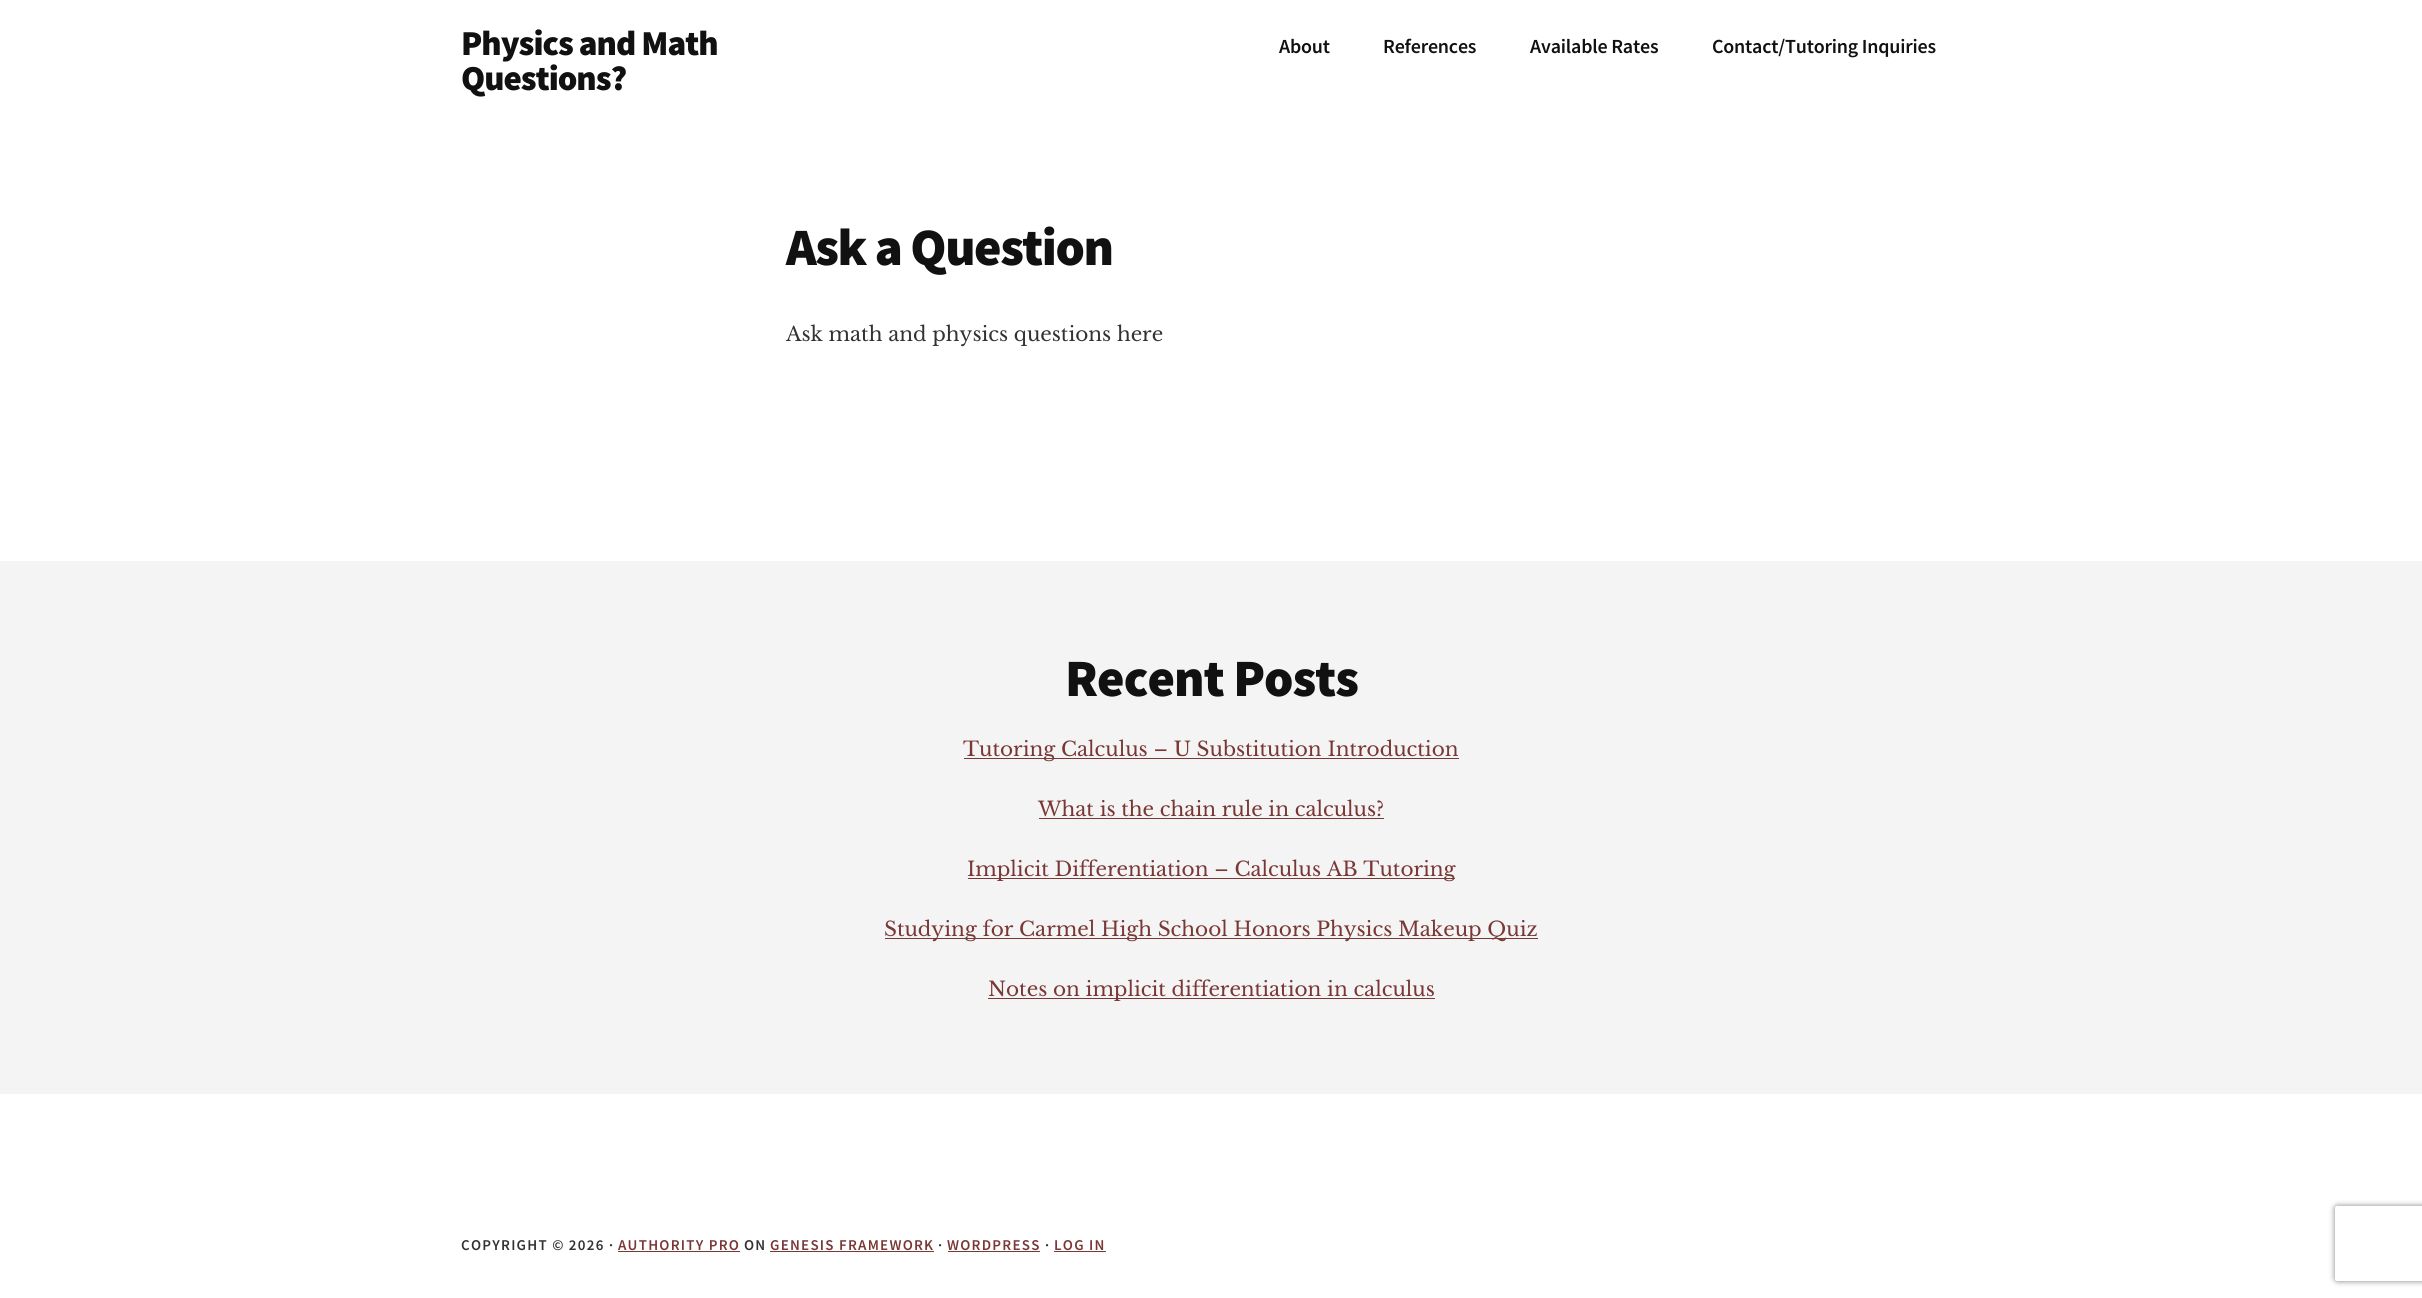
#include <cairo.h>
#include <math.h>
#include <stddef.h>

static cairo_t *ctx;

static void use_color(int r, int g, int b) {
    cairo_set_source_rgb(ctx, r / 255.0, g / 255.0, b / 255.0);
}

static void spaced_text(double x, double y, const char *s, double letter, double word) {
    cairo_move_to(ctx, x, y);
    while (*s) {
        char ch[5] = {0};
        int n = 0;
        do ch[n++] = *s++; while ((*s & 0xC0) == 0x80);
        cairo_show_text(ctx, ch);
        cairo_rel_move_to(ctx, letter + word * (*ch == ' '), 0);
    }
}

static void round_rect(double x, double y, double w, double h, double r) {
    cairo_new_sub_path(ctx);
    cairo_arc(ctx, x + w - r, y + h - r, r, 0, M_PI / 2);
    cairo_arc(ctx, x + r, y + h - r, r, M_PI / 2, M_PI);
    cairo_arc(ctx, x + r, y + r, r, M_PI, 1.5 * M_PI);
    cairo_arc(ctx, x + w - r, y + r, r, 1.5 * M_PI, 2 * M_PI);
    cairo_close_path(ctx);
}

static void shadow(double x, double y, double w, double h, double r, double blur, double alpha) {
    cairo_push_group_with_content(ctx, CAIRO_CONTENT_ALPHA);
    cairo_set_operator(ctx, CAIRO_OPERATOR_SOURCE);
    for (int i = 15; i >= -15 && fmin(w, h) + blur * i / 3 > 0; i -= 2) {
        double e = blur * i / 6;
        cairo_set_source_rgba(ctx, 0, 0, 0, alpha * erfc((i - 1) / 8.5) / 2);
        round_rect(x - e, y - e, w + 2 * e, h + 2 * e, fmax(0, fmin(r + e + blur * .6, fmin(w, h) / 2 + e)));
        cairo_fill(ctx);
    }
    cairo_pattern_t *soft = cairo_pop_group(ctx);
    cairo_mask(ctx, soft);
    cairo_pattern_destroy(soft);
}

int main(void) {
    cairo_surface_t *surface = cairo_image_surface_create(CAIRO_FORMAT_RGB24, 2422, 1298);
    ctx = cairo_create(surface);
    cairo_font_options_t *options = cairo_font_options_create();
    cairo_font_options_set_hint_metrics(options, CAIRO_HINT_METRICS_OFF);
    cairo_font_options_set_hint_style(options, CAIRO_HINT_STYLE_NONE);
    cairo_set_font_options(ctx, options);
    cairo_set_miter_limit(ctx, 4);
    use_color(255, 255, 255);
    cairo_paint(ctx);
    cairo_select_font_face(ctx, "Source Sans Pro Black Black", CAIRO_FONT_SLANT_NORMAL, CAIRO_FONT_WEIGHT_NORMAL);
    cairo_set_font_size(ctx, 35);
    use_color(17, 17, 17);
    spaced_text(461, 55, "Physics and Math", -1, 0);
    spaced_text(461, 90, "Questions?", -1, 0);
    cairo_select_font_face(ctx, "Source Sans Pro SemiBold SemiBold", CAIRO_FONT_SLANT_NORMAL, CAIRO_FONT_WEIGHT_NORMAL);
    cairo_set_font_size(ctx, 20);
    spaced_text(1279, 53, "About", -0.2, 0);
    spaced_text(1383, 53, "References", -0.2, 0);
    spaced_text(1530, 53, "Available Rates", -0.2, 0);
    spaced_text(1712, 53, "Contact/Tutoring Inquiries", -0.2, 0);
    cairo_select_font_face(ctx, "Source Sans Pro Black Black", CAIRO_FONT_SLANT_NORMAL, CAIRO_FONT_WEIGHT_NORMAL);
    cairo_set_font_size(ctx, 52.5);
    spaced_text(786, 265, "Ask a Question", -1.5, 0);
    cairo_select_font_face(ctx, "Libre Baskerville", CAIRO_FONT_SLANT_NORMAL, CAIRO_FONT_WEIGHT_NORMAL);
    cairo_set_font_size(ctx, 20);
    use_color(51, 51, 51);
    cairo_move_to(ctx, 786, 341);
    cairo_show_text(ctx, "Ask math and physics questions here");
    use_color(244, 244, 244);
    cairo_rectangle(ctx, 0, 561, 2422, 533);
    cairo_fill(ctx);
    cairo_select_font_face(ctx, "Source Sans Pro Black Black", CAIRO_FONT_SLANT_NORMAL, CAIRO_FONT_WEIGHT_NORMAL);
    cairo_set_font_size(ctx, 52.5);
    use_color(17, 17, 17);
    spaced_text(1065, 696, "Recent Posts", -1, 0);
    use_color(121, 56, 54);
    cairo_rectangle(ctx, 964, 758, 495, 1);
    cairo_fill(ctx);
    cairo_select_font_face(ctx, "Libre Baskerville", CAIRO_FONT_SLANT_NORMAL, CAIRO_FONT_WEIGHT_NORMAL);
    cairo_set_font_size(ctx, 20);
    cairo_move_to(ctx, 963, 756);
    cairo_show_text(ctx, "Tutoring Calculus – U Substitution Introduction");
    cairo_move_to(ctx, 1038, 816);
    cairo_show_text(ctx, "What is the chain rule in calculus?");
    cairo_rectangle(ctx, 1039, 818, 345, 1);
    cairo_fill(ctx);
    cairo_rectangle(ctx, 968, 878, 487, 1);
    cairo_fill(ctx);
    cairo_move_to(ctx, 967, 876);
    cairo_show_text(ctx, "Implicit Differentiation – Calculus AB Tutoring");
    cairo_rectangle(ctx, 885, 938, 653, 1);
    cairo_fill(ctx);
    cairo_move_to(ctx, 884, 936);
    cairo_show_text(ctx, "Studying for Carmel High School Honors Physics Makeup Quiz");
    cairo_rectangle(ctx, 988, 998, 447, 1);
    cairo_fill(ctx);
    cairo_move_to(ctx, 988, 996);
    cairo_show_text(ctx, "Notes on implicit differentiation in calculus");
    cairo_select_font_face(ctx, "Source Sans Pro SemiBold SemiBold", CAIRO_FONT_SLANT_NORMAL, CAIRO_FONT_WEIGHT_NORMAL);
    cairo_set_font_size(ctx, 15);
    use_color(51, 51, 51);
    spaced_text(461, 1250, "COPYRIGHT © 2026 ·", 1.25, 0);
    use_color(121, 56, 54);
    spaced_text(618, 1250, "AUTHORITY PRO", 1.25, 0);
    cairo_rectangle(ctx, 618, 1251, 122, 1);
    cairo_fill(ctx);
    use_color(51, 51, 51);
    spaced_text(744, 1250, "ON", 1.25, 0);
    use_color(121, 56, 54);
    spaced_text(770, 1250, "GENESIS FRAMEWORK", 1.25, 0);
    cairo_rectangle(ctx, 770, 1251, 164, 1);
    cairo_fill(ctx);
    use_color(51, 51, 51);
    spaced_text(938, 1250, "·", 1.25, 0);
    use_color(121, 56, 54);
    spaced_text(947, 1250, "WORDPRESS", 1.25, 0);
    cairo_rectangle(ctx, 948, 1251, 92, 1);
    cairo_fill(ctx);
    use_color(51, 51, 51);
    spaced_text(1045, 1250, "·", 1.25, 0);
    use_color(121, 56, 54);
    spaced_text(1054, 1250, "LOG IN", 1.25, 0);
    cairo_rectangle(ctx, 1054, 1251, 52, 1);
    cairo_fill(ctx);
    cairo_save(ctx);
    cairo_set_fill_rule(ctx, CAIRO_FILL_RULE_EVEN_ODD);
    cairo_new_path(ctx);
    cairo_move_to(ctx, 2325, 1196);
    cairo_line_to(ctx, 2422, 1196);
    cairo_line_to(ctx, 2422, 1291);
    cairo_line_to(ctx, 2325, 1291);
    cairo_close_path(ctx);
    cairo_move_to(ctx, 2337.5, 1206);
    cairo_line_to(ctx, 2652.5, 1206);
    cairo_curve_to(ctx, 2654, 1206, 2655, 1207, 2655, 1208.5);
    cairo_line_to(ctx, 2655, 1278.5);
    cairo_curve_to(ctx, 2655, 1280, 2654, 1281, 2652.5, 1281);
    cairo_line_to(ctx, 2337.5, 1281);
    cairo_curve_to(ctx, 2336, 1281, 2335, 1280, 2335, 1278.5);
    cairo_line_to(ctx, 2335, 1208.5);
    cairo_curve_to(ctx, 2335, 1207, 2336, 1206, 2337.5, 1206);
    cairo_close_path(ctx);
    cairo_clip(ctx);
    use_color(128, 128, 128);
    shadow(2335, 1206, 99, 75, 2.5, 3, 1);
    cairo_restore(ctx);
    cairo_surface_write_to_png(surface, "result.png");
    cairo_font_options_destroy(options);
    cairo_destroy(ctx);
    cairo_surface_destroy(surface);
    return 0;
}
